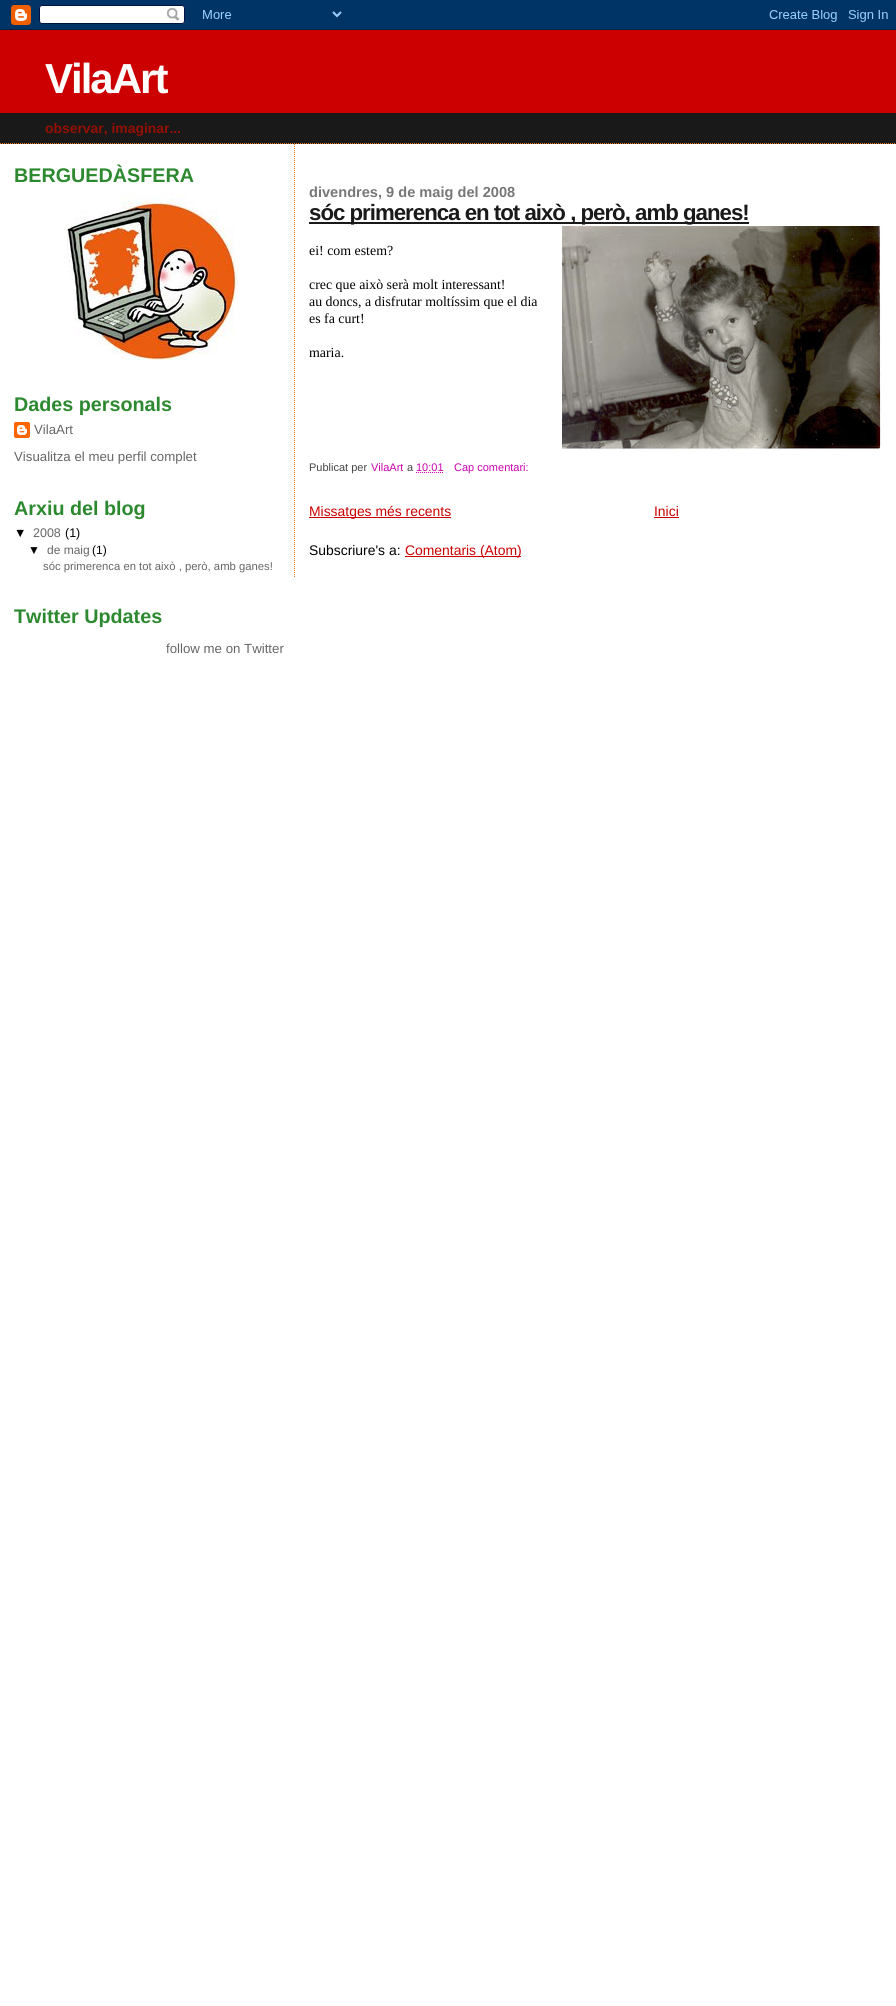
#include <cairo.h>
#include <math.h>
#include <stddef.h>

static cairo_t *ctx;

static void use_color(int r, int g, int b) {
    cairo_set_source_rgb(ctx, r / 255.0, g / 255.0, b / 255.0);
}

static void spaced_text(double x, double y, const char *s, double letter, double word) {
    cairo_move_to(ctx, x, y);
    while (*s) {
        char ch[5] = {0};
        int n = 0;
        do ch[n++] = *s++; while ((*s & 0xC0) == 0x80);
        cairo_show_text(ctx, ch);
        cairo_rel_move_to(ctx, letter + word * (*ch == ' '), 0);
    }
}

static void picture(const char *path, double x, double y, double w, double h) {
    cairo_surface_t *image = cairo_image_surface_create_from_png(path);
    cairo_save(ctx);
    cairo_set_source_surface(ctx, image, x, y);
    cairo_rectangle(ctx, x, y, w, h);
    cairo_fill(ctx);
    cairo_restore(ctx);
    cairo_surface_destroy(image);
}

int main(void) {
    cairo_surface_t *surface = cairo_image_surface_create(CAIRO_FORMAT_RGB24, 896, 2006);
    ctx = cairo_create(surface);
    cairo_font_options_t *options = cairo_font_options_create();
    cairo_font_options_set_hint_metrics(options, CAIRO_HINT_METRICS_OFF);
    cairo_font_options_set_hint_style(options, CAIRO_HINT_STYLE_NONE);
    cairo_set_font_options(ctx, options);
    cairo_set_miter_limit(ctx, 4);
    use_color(255, 255, 255);
    cairo_paint(ctx);
    picture("img1.png", 0, 0, 896, 30);
    use_color(25, 25, 25);
    cairo_rectangle(ctx, 0, 113, 896, 31);
    cairo_fill(ctx);
    cairo_new_path(ctx);
    cairo_move_to(ctx, 0, 143.5);
    cairo_line_to(ctx, 896, 143.5);
    use_color(225, 119, 30);
    cairo_set_line_width(ctx, 1);
    cairo_set_dash(ctx, (double[]){1, 1}, 2, 0);
    cairo_stroke(ctx);
    use_color(204, 0, 0);
    cairo_rectangle(ctx, 0, 30, 896, 83);
    cairo_fill(ctx);
    cairo_select_font_face(ctx, "Liberation Sans", CAIRO_FONT_SLANT_NORMAL, CAIRO_FONT_WEIGHT_BOLD);
    cairo_set_font_size(ctx, 42);
    use_color(255, 255, 255);
    spaced_text(45, 93, "VilaArt", -2, 0);
    cairo_set_font_size(ctx, 13.9);
    use_color(148, 15, 4);
    cairo_move_to(ctx, 45, 133);
    cairo_show_text(ctx, "observar, imaginar...");
    cairo_set_font_size(ctx, 19.75);
    use_color(45, 137, 48);
    cairo_move_to(ctx, 14, 182);
    cairo_show_text(ctx, "BERGUEDÀSFERA");
    picture("img2.png", 66, 194, 172, 166);
    cairo_move_to(ctx, 14, 411);
    cairo_show_text(ctx, "Dades personals");
    picture("img3.png", 14, 422, 16, 16);
    cairo_select_font_face(ctx, "Liberation Sans", CAIRO_FONT_SLANT_NORMAL, CAIRO_FONT_WEIGHT_NORMAL);
    cairo_set_font_size(ctx, 13.25);
    use_color(102, 102, 102);
    cairo_move_to(ctx, 34, 434);
    cairo_show_text(ctx, "VilaArt");
    cairo_move_to(ctx, 14, 461);
    cairo_show_text(ctx, "Visualitza el meu perfil complet");
    cairo_select_font_face(ctx, "Liberation Sans", CAIRO_FONT_SLANT_NORMAL, CAIRO_FONT_WEIGHT_BOLD);
    cairo_set_font_size(ctx, 19.75);
    use_color(45, 137, 48);
    cairo_move_to(ctx, 14, 515);
    cairo_show_text(ctx, "Arxiu del blog");
    cairo_select_font_face(ctx, "Liberation Sans", CAIRO_FONT_SLANT_NORMAL, CAIRO_FONT_WEIGHT_NORMAL);
    cairo_set_font_size(ctx, 12.5);
    use_color(0, 0, 0);
    cairo_move_to(ctx, 14, 537);
    cairo_show_text(ctx, "▼");
    use_color(102, 102, 102);
    cairo_move_to(ctx, 33, 537);
    cairo_show_text(ctx, "2008");
    use_color(0, 0, 0);
    cairo_move_to(ctx, 65, 537);
    cairo_show_text(ctx, "(1)");
    cairo_set_font_size(ctx, 12);
    cairo_move_to(ctx, 28, 554);
    cairo_show_text(ctx, "▼");
    use_color(102, 102, 102);
    cairo_move_to(ctx, 47, 554);
    cairo_show_text(ctx, "de maig");
    use_color(0, 0, 0);
    cairo_move_to(ctx, 92, 554);
    cairo_show_text(ctx, "(1)");
    cairo_set_font_size(ctx, 11.3);
    use_color(102, 102, 102);
    cairo_move_to(ctx, 43, 570);
    cairo_show_text(ctx, "sóc primerenca en tot això , però, amb ganes!");
    cairo_select_font_face(ctx, "Liberation Sans", CAIRO_FONT_SLANT_NORMAL, CAIRO_FONT_WEIGHT_BOLD);
    cairo_set_font_size(ctx, 19.75);
    use_color(45, 137, 48);
    cairo_move_to(ctx, 14, 623);
    cairo_show_text(ctx, "Twitter Updates");
    cairo_select_font_face(ctx, "Liberation Sans", CAIRO_FONT_SLANT_NORMAL, CAIRO_FONT_WEIGHT_NORMAL);
    cairo_set_font_size(ctx, 13.25);
    use_color(102, 102, 102);
    cairo_move_to(ctx, 166, 653);
    cairo_show_text(ctx, "follow me on Twitter");
    cairo_new_path(ctx);
    cairo_move_to(ctx, 294.5, 144);
    cairo_line_to(ctx, 294.5, 578);
    use_color(225, 119, 30);
    cairo_stroke(ctx);
    cairo_select_font_face(ctx, "Liberation Sans", CAIRO_FONT_SLANT_NORMAL, CAIRO_FONT_WEIGHT_BOLD);
    cairo_set_font_size(ctx, 14.6);
    use_color(119, 119, 119);
    cairo_move_to(ctx, 309, 197);
    cairo_show_text(ctx, "divendres, 9 de maig del 2008");
    use_color(25, 25, 25);
    cairo_rectangle(ctx, 309, 222, 440, 2);
    cairo_fill(ctx);
    cairo_set_font_size(ctx, 22.25);
    spaced_text(309, 220, "sóc primerenca en tot això , però, amb ganes!", -1, 0);
    cairo_select_font_face(ctx, "Liberation Serif", CAIRO_FONT_SLANT_NORMAL, CAIRO_FONT_WEIGHT_NORMAL);
    cairo_set_font_size(ctx, 13.9);
    use_color(0, 0, 0);
    cairo_move_to(ctx, 309, 255);
    cairo_show_text(ctx, "ei! com estem?");
    picture("img4.png", 562, 226, 320, 224);
    cairo_move_to(ctx, 309, 289);
    cairo_show_text(ctx, "crec que això serà molt interessant!");
    cairo_move_to(ctx, 309, 306);
    cairo_show_text(ctx, "au doncs, a disfrutar moltíssim que el dia");
    cairo_move_to(ctx, 309, 323);
    cairo_show_text(ctx, "es fa curt!");
    cairo_move_to(ctx, 309, 357);
    cairo_show_text(ctx, "maria.");
    cairo_select_font_face(ctx, "Liberation Sans", CAIRO_FONT_SLANT_NORMAL, CAIRO_FONT_WEIGHT_NORMAL);
    cairo_set_font_size(ctx, 11);
    use_color(68, 68, 68);
    cairo_move_to(ctx, 309, 471);
    cairo_show_text(ctx, "Publicat per");
    use_color(204, 0, 175);
    cairo_move_to(ctx, 371, 471);
    cairo_show_text(ctx, "VilaArt");
    use_color(68, 68, 68);
    cairo_move_to(ctx, 407, 471);
    cairo_show_text(ctx, "a");
    use_color(204, 0, 175);
    cairo_move_to(ctx, 416, 471);
    cairo_show_text(ctx, "10:01");
    cairo_new_path(ctx);
    cairo_move_to(ctx, 416, 472.5);
    cairo_line_to(ctx, 444, 472.5);
    cairo_stroke(ctx);
    cairo_move_to(ctx, 454, 471);
    cairo_show_text(ctx, "Cap comentari:");
    use_color(204, 0, 0);
    cairo_rectangle(ctx, 309, 517, 142, 1);
    cairo_fill(ctx);
    cairo_set_font_size(ctx, 13.9);
    cairo_move_to(ctx, 309, 516);
    cairo_show_text(ctx, "Missatges més recents");
    cairo_move_to(ctx, 654, 516);
    cairo_show_text(ctx, "Inici");
    cairo_rectangle(ctx, 654, 517, 25, 1);
    cairo_fill(ctx);
    use_color(0, 0, 0);
    cairo_move_to(ctx, 309, 555);
    cairo_show_text(ctx, "Subscriure's a:");
    use_color(204, 0, 0);
    cairo_rectangle(ctx, 405, 556, 116, 1);
    cairo_fill(ctx);
    cairo_move_to(ctx, 405, 555);
    cairo_show_text(ctx, "Comentaris (Atom)");
    cairo_surface_write_to_png(surface, "result.png");
    cairo_font_options_destroy(options);
    cairo_destroy(ctx);
    cairo_surface_destroy(surface);
    return 0;
}
